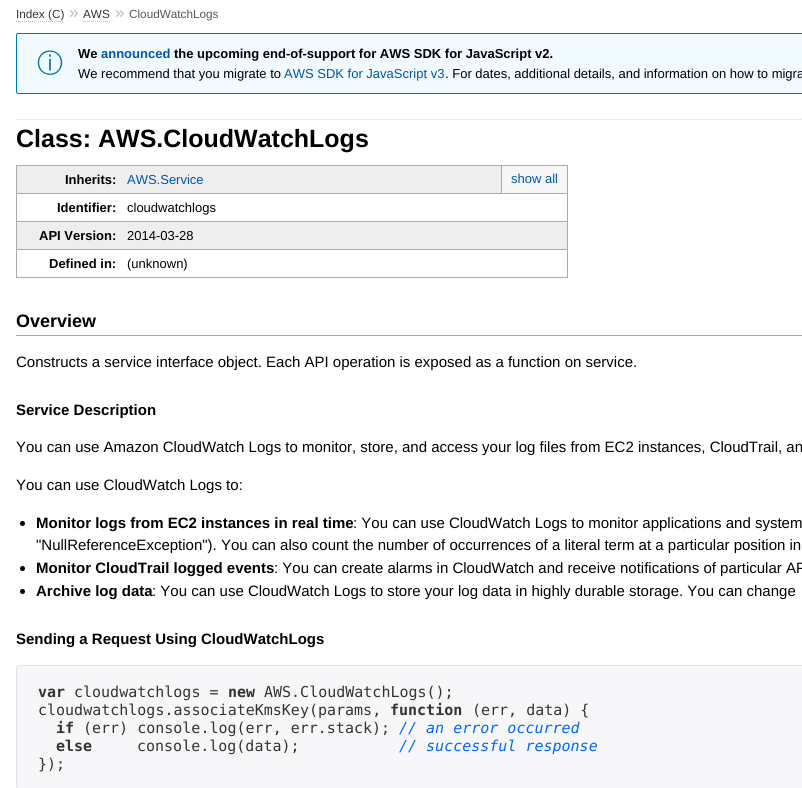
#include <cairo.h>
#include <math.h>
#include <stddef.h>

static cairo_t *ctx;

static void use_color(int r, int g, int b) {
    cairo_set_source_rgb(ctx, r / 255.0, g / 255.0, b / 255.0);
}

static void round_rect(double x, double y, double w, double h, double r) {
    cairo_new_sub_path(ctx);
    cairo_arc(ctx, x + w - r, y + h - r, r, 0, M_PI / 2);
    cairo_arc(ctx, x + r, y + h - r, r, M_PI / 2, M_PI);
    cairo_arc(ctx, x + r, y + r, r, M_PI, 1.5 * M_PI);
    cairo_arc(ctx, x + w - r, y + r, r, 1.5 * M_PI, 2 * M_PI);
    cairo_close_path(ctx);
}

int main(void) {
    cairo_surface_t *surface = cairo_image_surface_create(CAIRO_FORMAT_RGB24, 802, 788);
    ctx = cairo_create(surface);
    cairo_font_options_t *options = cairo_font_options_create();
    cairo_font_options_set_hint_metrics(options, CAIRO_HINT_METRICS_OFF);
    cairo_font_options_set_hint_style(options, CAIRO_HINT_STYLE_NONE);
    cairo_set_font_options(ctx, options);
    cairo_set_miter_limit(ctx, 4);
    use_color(255, 255, 255);
    cairo_paint(ctx);
    cairo_select_font_face(ctx, "Liberation Sans", CAIRO_FONT_SLANT_NORMAL, CAIRO_FONT_WEIGHT_NORMAL);
    cairo_set_font_size(ctx, 11.75);
    use_color(51, 51, 51);
    cairo_move_to(ctx, 16, 18);
    cairo_show_text(ctx, "Index (C)");
    cairo_new_path(ctx);
    cairo_move_to(ctx, 16, 21.5);
    cairo_line_to(ctx, 64, 21.5);
    use_color(187, 187, 221);
    cairo_set_line_width(ctx, 1);
    cairo_set_dash(ctx, (double[]){1, 1}, 2, 0);
    cairo_stroke(ctx);
    cairo_set_font_size(ctx, 17);
    use_color(187, 187, 187);
    cairo_move_to(ctx, 69, 18);
    cairo_show_text(ctx, "»");
    cairo_set_font_size(ctx, 11.75);
    use_color(51, 51, 51);
    cairo_move_to(ctx, 83, 18);
    cairo_show_text(ctx, "AWS");
    cairo_new_path(ctx);
    cairo_move_to(ctx, 83, 21.5);
    cairo_line_to(ctx, 110, 21.5);
    use_color(187, 187, 221);
    cairo_stroke(ctx);
    cairo_set_font_size(ctx, 17);
    use_color(187, 187, 187);
    cairo_move_to(ctx, 115, 18);
    cairo_show_text(ctx, "»");
    cairo_set_font_size(ctx, 11.75);
    use_color(85, 85, 85);
    cairo_move_to(ctx, 129, 18);
    cairo_show_text(ctx, "CloudWatchLogs");
    use_color(241, 250, 255);
    round_rect(16.5, 33.5, 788, 60, 1.5);
    cairo_fill_preserve(ctx);
    use_color(0, 115, 187);
    cairo_set_dash(ctx, NULL, 0, 0);
    cairo_stroke(ctx);
    cairo_select_font_face(ctx, "WenQuanYi Zen Hei Medium", CAIRO_FONT_SLANT_NORMAL, CAIRO_FONT_WEIGHT_NORMAL);
    cairo_set_font_size(ctx, 26);
    cairo_move_to(ctx, 37, 72);
    cairo_show_text(ctx, "ⓘ");
    cairo_select_font_face(ctx, "Liberation Sans", CAIRO_FONT_SLANT_NORMAL, CAIRO_FONT_WEIGHT_BOLD);
    cairo_set_font_size(ctx, 13);
    use_color(0, 0, 0);
    cairo_move_to(ctx, 78, 58);
    cairo_show_text(ctx, "We");
    use_color(0, 85, 170);
    cairo_move_to(ctx, 101, 58);
    cairo_show_text(ctx, "announced");
    use_color(0, 0, 0);
    cairo_move_to(ctx, 174, 58);
    cairo_show_text(ctx, "the upcoming end-of-support for AWS SDK for JavaScript v2.");
    cairo_select_font_face(ctx, "Liberation Sans", CAIRO_FONT_SLANT_NORMAL, CAIRO_FONT_WEIGHT_NORMAL);
    cairo_move_to(ctx, 78, 78);
    cairo_show_text(ctx, "We recommend that you migrate to");
    use_color(0, 85, 170);
    cairo_move_to(ctx, 284, 78);
    cairo_show_text(ctx, "AWS SDK for JavaScript v3");
    use_color(0, 0, 0);
    cairo_move_to(ctx, 445, 78);
    cairo_show_text(ctx, ". For dates, additional details, and information on how to migra");
    cairo_new_path(ctx);
    cairo_move_to(ctx, 16, 119.5);
    cairo_line_to(ctx, 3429, 119.5);
    use_color(213, 213, 213);
    cairo_set_dash(ctx, (double[]){1, 1}, 2, 0);
    cairo_stroke(ctx);
    cairo_select_font_face(ctx, "Liberation Sans", CAIRO_FONT_SLANT_NORMAL, CAIRO_FONT_WEIGHT_BOLD);
    cairo_set_font_size(ctx, 25);
    use_color(0, 0, 0);
    cairo_move_to(ctx, 16, 147);
    cairo_show_text(ctx, "Class: AWS.CloudWatchLogs");
    use_color(238, 238, 238);
    cairo_rectangle(ctx, 17, 166, 484, 27);
    cairo_fill(ctx);
    use_color(170, 170, 170);
    cairo_rectangle(ctx, 16, 165, 552, 1);
    cairo_fill(ctx);
    cairo_rectangle(ctx, 16, 165, 1, 28);
    cairo_fill(ctx);
    cairo_set_font_size(ctx, 13);
    use_color(0, 0, 0);
    cairo_move_to(ctx, 65, 184);
    cairo_show_text(ctx, "Inherits:");
    use_color(170, 170, 170);
    cairo_rectangle(ctx, 16, 193, 552, 1);
    cairo_fill(ctx);
    cairo_rectangle(ctx, 16, 221, 552, 1);
    cairo_fill(ctx);
    cairo_rectangle(ctx, 16, 249, 552, 1);
    cairo_fill(ctx);
    cairo_rectangle(ctx, 567, 165, 1, 113);
    cairo_fill(ctx);
    cairo_select_font_face(ctx, "Liberation Sans", CAIRO_FONT_SLANT_NORMAL, CAIRO_FONT_WEIGHT_NORMAL);
    use_color(0, 85, 170);
    cairo_move_to(ctx, 127, 184);
    cairo_show_text(ctx, "AWS.Service");
    use_color(246, 246, 246);
    cairo_rectangle(ctx, 502, 166, 65, 27);
    cairo_fill(ctx);
    use_color(170, 170, 170);
    cairo_rectangle(ctx, 501, 166, 1, 27);
    cairo_fill(ctx);
    use_color(0, 85, 170);
    cairo_move_to(ctx, 511, 183);
    cairo_show_text(ctx, "show all");
    use_color(170, 170, 170);
    cairo_rectangle(ctx, 16, 193, 1, 28);
    cairo_fill(ctx);
    cairo_select_font_face(ctx, "Liberation Sans", CAIRO_FONT_SLANT_NORMAL, CAIRO_FONT_WEIGHT_BOLD);
    use_color(0, 0, 0);
    cairo_move_to(ctx, 57, 212);
    cairo_show_text(ctx, "Identifier:");
    cairo_select_font_face(ctx, "Liberation Sans", CAIRO_FONT_SLANT_NORMAL, CAIRO_FONT_WEIGHT_NORMAL);
    cairo_move_to(ctx, 127, 212);
    cairo_show_text(ctx, "cloudwatchlogs");
    use_color(238, 238, 238);
    cairo_rectangle(ctx, 17, 222, 550, 27);
    cairo_fill(ctx);
    use_color(170, 170, 170);
    cairo_rectangle(ctx, 16, 221, 1, 28);
    cairo_fill(ctx);
    cairo_select_font_face(ctx, "Liberation Sans", CAIRO_FONT_SLANT_NORMAL, CAIRO_FONT_WEIGHT_BOLD);
    use_color(0, 0, 0);
    cairo_move_to(ctx, 39, 240);
    cairo_show_text(ctx, "API Version:");
    cairo_select_font_face(ctx, "Liberation Sans", CAIRO_FONT_SLANT_NORMAL, CAIRO_FONT_WEIGHT_NORMAL);
    cairo_move_to(ctx, 127, 240);
    cairo_show_text(ctx, "2014-03-28");
    use_color(170, 170, 170);
    cairo_rectangle(ctx, 16, 277, 111, 1);
    cairo_fill(ctx);
    cairo_rectangle(ctx, 16, 249, 1, 29);
    cairo_fill(ctx);
    cairo_select_font_face(ctx, "Liberation Sans", CAIRO_FONT_SLANT_NORMAL, CAIRO_FONT_WEIGHT_BOLD);
    use_color(0, 0, 0);
    cairo_move_to(ctx, 49, 268);
    cairo_show_text(ctx, "Defined in:");
    use_color(170, 170, 170);
    cairo_rectangle(ctx, 127, 277, 441, 1);
    cairo_fill(ctx);
    cairo_select_font_face(ctx, "Liberation Sans", CAIRO_FONT_SLANT_NORMAL, CAIRO_FONT_WEIGHT_NORMAL);
    use_color(0, 0, 0);
    cairo_move_to(ctx, 127, 268);
    cairo_show_text(ctx, "(unknown)");
    use_color(170, 170, 170);
    cairo_rectangle(ctx, 16, 335, 786, 1);
    cairo_fill(ctx);
    cairo_select_font_face(ctx, "Liberation Sans", CAIRO_FONT_SLANT_NORMAL, CAIRO_FONT_WEIGHT_BOLD);
    cairo_set_font_size(ctx, 18);
    use_color(0, 0, 0);
    cairo_move_to(ctx, 16, 327);
    cairo_show_text(ctx, "Overview");
    cairo_select_font_face(ctx, "Liberation Sans", CAIRO_FONT_SLANT_NORMAL, CAIRO_FONT_WEIGHT_NORMAL);
    cairo_set_font_size(ctx, 15);
    cairo_move_to(ctx, 16, 367);
    cairo_show_text(ctx, "Constructs a service interface object. Each API operation is exposed as a function on service.");
    cairo_select_font_face(ctx, "Liberation Sans", CAIRO_FONT_SLANT_NORMAL, CAIRO_FONT_WEIGHT_BOLD);
    cairo_move_to(ctx, 16, 415);
    cairo_show_text(ctx, "Service Description");
    cairo_select_font_face(ctx, "Liberation Sans", CAIRO_FONT_SLANT_NORMAL, CAIRO_FONT_WEIGHT_NORMAL);
    cairo_move_to(ctx, 16, 452);
    cairo_show_text(ctx, "You can use Amazon CloudWatch Logs to monitor, store, and access your log files from EC2 instances, CloudTrail, an");
    cairo_move_to(ctx, 16, 490);
    cairo_show_text(ctx, "You can use CloudWatch Logs to:");
    cairo_new_path(ctx);
    cairo_arc(ctx, 22.5, 523.5, 2.5, 0, 2 * M_PI);
    cairo_fill(ctx);
    cairo_select_font_face(ctx, "Liberation Sans", CAIRO_FONT_SLANT_NORMAL, CAIRO_FONT_WEIGHT_BOLD);
    cairo_move_to(ctx, 36, 528);
    cairo_show_text(ctx, "Monitor logs from EC2 instances in real time");
    cairo_select_font_face(ctx, "Liberation Sans", CAIRO_FONT_SLANT_NORMAL, CAIRO_FONT_WEIGHT_NORMAL);
    cairo_move_to(ctx, 353, 528);
    cairo_show_text(ctx, ": You can use CloudWatch Logs to monitor applications and system");
    cairo_move_to(ctx, 36, 550);
    cairo_show_text(ctx, "\"NullReferenceException\"). You can also count the number of occurrences of a literal term at a particular position in");
    cairo_new_path(ctx);
    cairo_arc(ctx, 22.5, 568.5, 2.5, 0, 2 * M_PI);
    cairo_fill(ctx);
    cairo_select_font_face(ctx, "Liberation Sans", CAIRO_FONT_SLANT_NORMAL, CAIRO_FONT_WEIGHT_BOLD);
    cairo_move_to(ctx, 36, 573);
    cairo_show_text(ctx, "Monitor CloudTrail logged events");
    cairo_select_font_face(ctx, "Liberation Sans", CAIRO_FONT_SLANT_NORMAL, CAIRO_FONT_WEIGHT_NORMAL);
    cairo_move_to(ctx, 274, 573);
    cairo_show_text(ctx, ": You can create alarms in CloudWatch and receive notifications of particular AP");
    cairo_new_path(ctx);
    cairo_arc(ctx, 22.5, 591.5, 2.5, 0, 2 * M_PI);
    cairo_fill(ctx);
    cairo_select_font_face(ctx, "Liberation Sans", CAIRO_FONT_SLANT_NORMAL, CAIRO_FONT_WEIGHT_BOLD);
    cairo_move_to(ctx, 36, 596);
    cairo_show_text(ctx, "Archive log data");
    cairo_select_font_face(ctx, "Liberation Sans", CAIRO_FONT_SLANT_NORMAL, CAIRO_FONT_WEIGHT_NORMAL);
    cairo_move_to(ctx, 152, 596);
    cairo_show_text(ctx, ": You can use CloudWatch Logs to store your log data in highly durable storage. You can change");
    cairo_select_font_face(ctx, "Liberation Sans", CAIRO_FONT_SLANT_NORMAL, CAIRO_FONT_WEIGHT_BOLD);
    cairo_move_to(ctx, 16, 644);
    cairo_show_text(ctx, "Sending a Request Using CloudWatchLogs");
    use_color(247, 247, 249);
    round_rect(16.5, 665.5, 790, 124, 3.5);
    cairo_fill_preserve(ctx);
    use_color(225, 225, 232);
    cairo_set_dash(ctx, NULL, 0, 0);
    cairo_stroke(ctx);
    cairo_select_font_face(ctx, "DejaVu Sans Mono", CAIRO_FONT_SLANT_NORMAL, CAIRO_FONT_WEIGHT_BOLD);
    use_color(51, 51, 51);
    cairo_move_to(ctx, 38, 697);
    cairo_show_text(ctx, "var");
    cairo_select_font_face(ctx, "DejaVu Sans Mono", CAIRO_FONT_SLANT_NORMAL, CAIRO_FONT_WEIGHT_NORMAL);
    cairo_move_to(ctx, 74, 697);
    cairo_show_text(ctx, "cloudwatchlogs =");
    cairo_select_font_face(ctx, "DejaVu Sans Mono", CAIRO_FONT_SLANT_NORMAL, CAIRO_FONT_WEIGHT_BOLD);
    cairo_move_to(ctx, 228, 697);
    cairo_show_text(ctx, "new");
    cairo_select_font_face(ctx, "DejaVu Sans Mono", CAIRO_FONT_SLANT_NORMAL, CAIRO_FONT_WEIGHT_NORMAL);
    cairo_move_to(ctx, 264, 697);
    cairo_show_text(ctx, "AWS.CloudWatchLogs();");
    cairo_move_to(ctx, 38, 715);
    cairo_show_text(ctx, "cloudwatchlogs.associateKmsKey(params,");
    cairo_select_font_face(ctx, "DejaVu Sans Mono", CAIRO_FONT_SLANT_NORMAL, CAIRO_FONT_WEIGHT_BOLD);
    cairo_move_to(ctx, 390, 715);
    cairo_show_text(ctx, "function");
    cairo_select_font_face(ctx, "DejaVu Sans Mono", CAIRO_FONT_SLANT_NORMAL, CAIRO_FONT_WEIGHT_NORMAL);
    cairo_move_to(ctx, 472, 715);
    cairo_show_text(ctx, "(err, data) {");
    cairo_select_font_face(ctx, "DejaVu Sans Mono", CAIRO_FONT_SLANT_NORMAL, CAIRO_FONT_WEIGHT_BOLD);
    cairo_move_to(ctx, 56, 733);
    cairo_show_text(ctx, "if");
    cairo_select_font_face(ctx, "DejaVu Sans Mono", CAIRO_FONT_SLANT_NORMAL, CAIRO_FONT_WEIGHT_NORMAL);
    cairo_move_to(ctx, 83, 733);
    cairo_show_text(ctx, "(err) console.log(err, err.stack);");
    cairo_select_font_face(ctx, "DejaVu Sans Mono", CAIRO_FONT_SLANT_ITALIC, CAIRO_FONT_WEIGHT_NORMAL);
    use_color(0, 102, 255);
    cairo_move_to(ctx, 399, 733);
    cairo_show_text(ctx, "// an error occurred");
    cairo_select_font_face(ctx, "DejaVu Sans Mono", CAIRO_FONT_SLANT_NORMAL, CAIRO_FONT_WEIGHT_BOLD);
    use_color(51, 51, 51);
    cairo_move_to(ctx, 56, 751);
    cairo_show_text(ctx, "else");
    cairo_select_font_face(ctx, "DejaVu Sans Mono", CAIRO_FONT_SLANT_NORMAL, CAIRO_FONT_WEIGHT_NORMAL);
    cairo_move_to(ctx, 137, 751);
    cairo_show_text(ctx, "console.log(data);");
    cairo_select_font_face(ctx, "DejaVu Sans Mono", CAIRO_FONT_SLANT_ITALIC, CAIRO_FONT_WEIGHT_NORMAL);
    use_color(0, 102, 255);
    cairo_move_to(ctx, 399, 751);
    cairo_show_text(ctx, "// successful response");
    cairo_select_font_face(ctx, "DejaVu Sans Mono", CAIRO_FONT_SLANT_NORMAL, CAIRO_FONT_WEIGHT_NORMAL);
    use_color(51, 51, 51);
    cairo_move_to(ctx, 38, 769);
    cairo_show_text(ctx, "});");
    cairo_surface_write_to_png(surface, "result.png");
    cairo_font_options_destroy(options);
    cairo_destroy(ctx);
    cairo_surface_destroy(surface);
    return 0;
}
